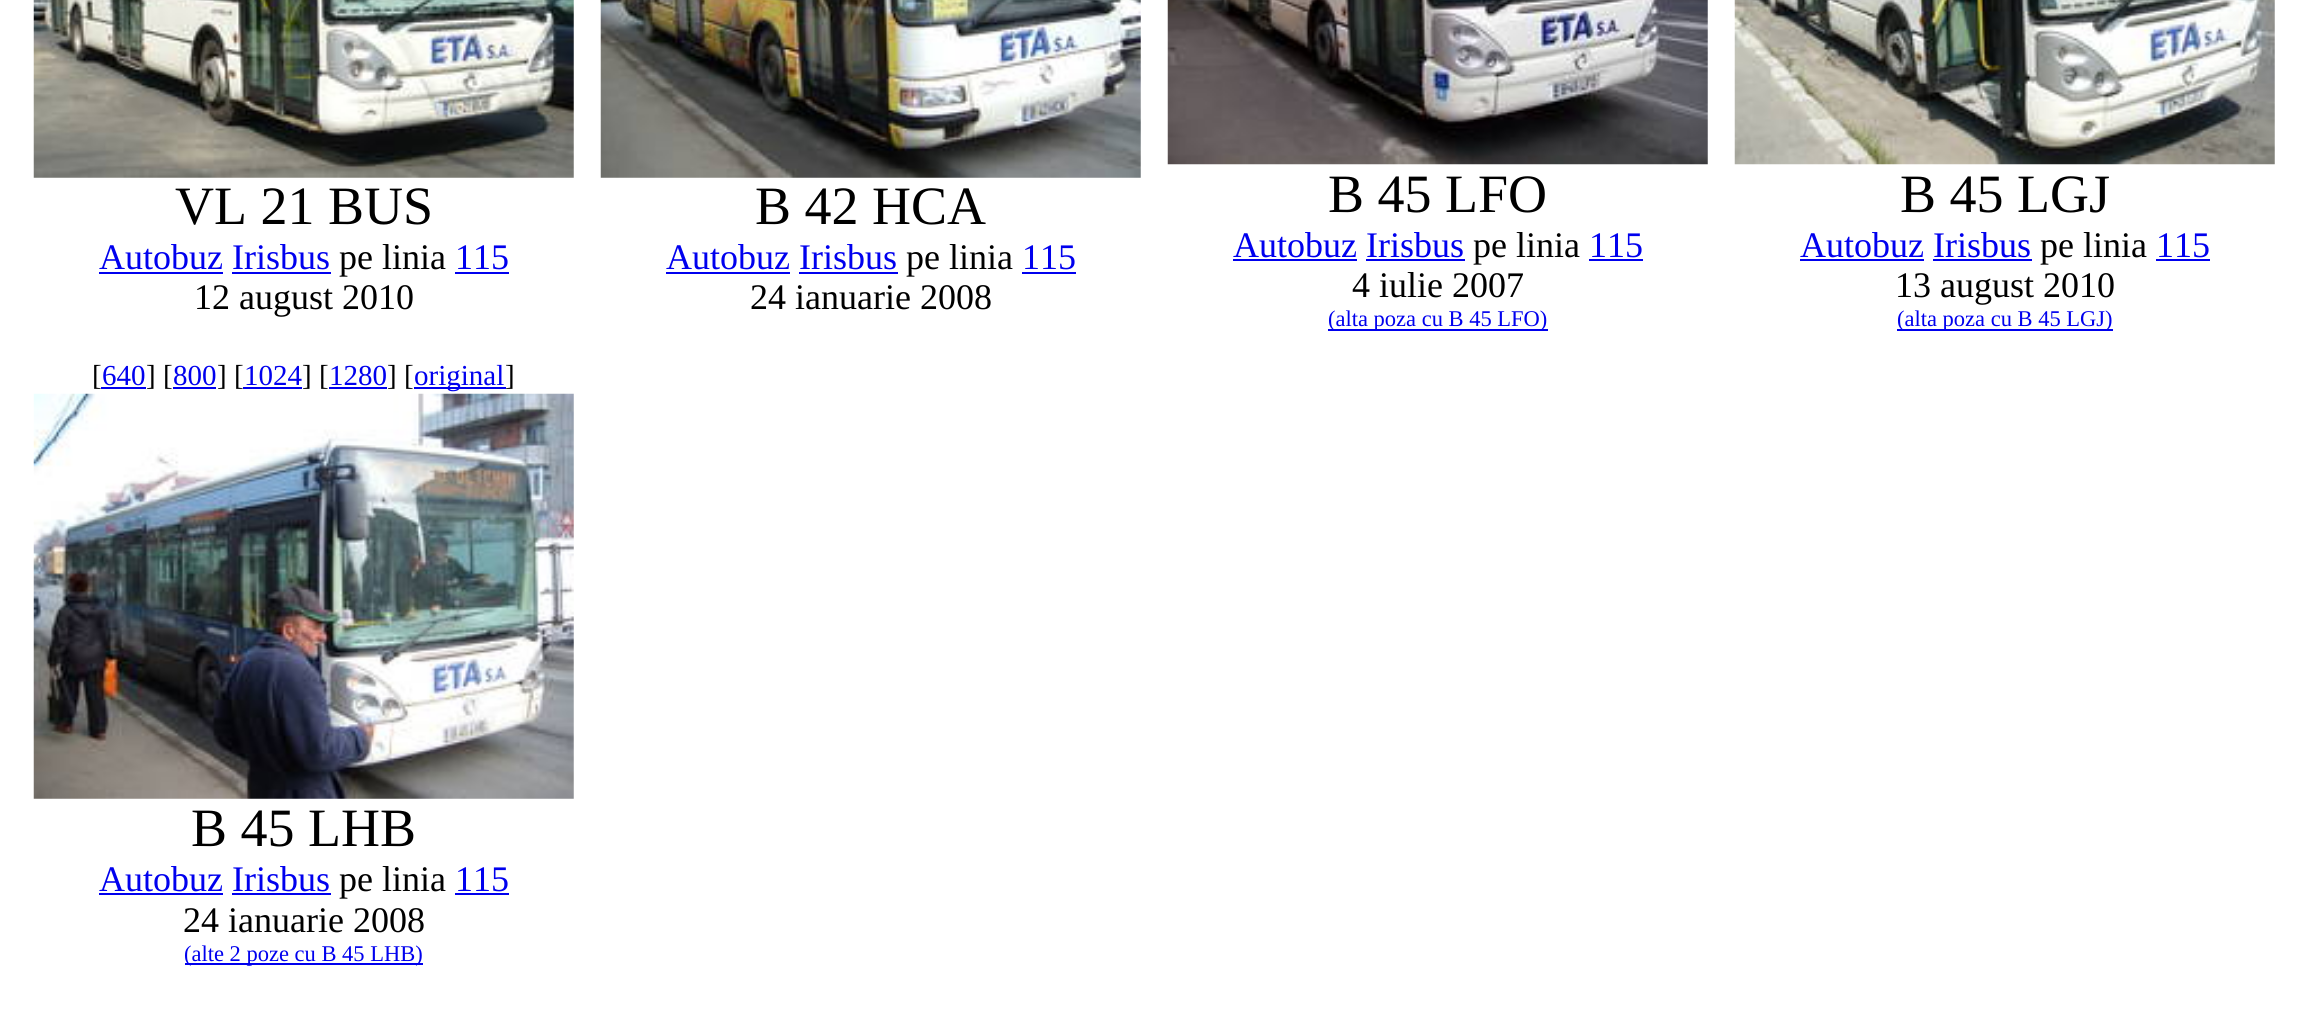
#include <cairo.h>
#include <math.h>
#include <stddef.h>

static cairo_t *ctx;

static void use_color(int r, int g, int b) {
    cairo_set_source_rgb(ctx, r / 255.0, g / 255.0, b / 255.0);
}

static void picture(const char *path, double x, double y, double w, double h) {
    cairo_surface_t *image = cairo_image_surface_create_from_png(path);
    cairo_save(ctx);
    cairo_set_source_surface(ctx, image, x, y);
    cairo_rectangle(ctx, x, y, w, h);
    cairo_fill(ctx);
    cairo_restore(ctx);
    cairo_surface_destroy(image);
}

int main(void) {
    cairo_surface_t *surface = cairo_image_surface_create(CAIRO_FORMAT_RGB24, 2297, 1017);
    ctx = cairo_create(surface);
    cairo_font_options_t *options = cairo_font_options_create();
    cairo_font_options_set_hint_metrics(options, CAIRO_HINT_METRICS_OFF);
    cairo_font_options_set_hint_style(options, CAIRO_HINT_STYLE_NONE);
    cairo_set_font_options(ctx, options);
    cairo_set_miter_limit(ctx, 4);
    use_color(255, 255, 255);
    cairo_paint(ctx);
    picture("img1.png", 33, 0, 541, 178);
    cairo_select_font_face(ctx, "Liberation Serif", CAIRO_FONT_SLANT_NORMAL, CAIRO_FONT_WEIGHT_NORMAL);
    cairo_set_font_size(ctx, 54);
    use_color(0, 0, 0);
    cairo_move_to(ctx, 175, 224);
    cairo_show_text(ctx, "VL 21 BUS");
    cairo_set_font_size(ctx, 36);
    use_color(0, 0, 238);
    cairo_move_to(ctx, 99, 269);
    cairo_show_text(ctx, "Autobuz Irisbus");
    cairo_rectangle(ctx, 99, 272, 124, 2);
    cairo_fill(ctx);
    use_color(0, 0, 0);
    cairo_move_to(ctx, 339, 269);
    cairo_show_text(ctx, "pe linia");
    use_color(0, 0, 238);
    cairo_move_to(ctx, 455, 269);
    cairo_show_text(ctx, "115");
    cairo_rectangle(ctx, 455, 272, 54, 2);
    cairo_fill(ctx);
    cairo_rectangle(ctx, 232, 272, 99, 2);
    cairo_fill(ctx);
    use_color(0, 0, 0);
    cairo_move_to(ctx, 194, 309);
    cairo_show_text(ctx, "12 august 2010");
    picture("img2.png", 600, 0, 541, 178);
    cairo_set_font_size(ctx, 54);
    cairo_move_to(ctx, 755, 224);
    cairo_show_text(ctx, "B 42 HCA");
    cairo_set_font_size(ctx, 36);
    use_color(0, 0, 238);
    cairo_move_to(ctx, 666, 269);
    cairo_show_text(ctx, "Autobuz Irisbus");
    cairo_rectangle(ctx, 666, 272, 124, 2);
    cairo_fill(ctx);
    use_color(0, 0, 0);
    cairo_move_to(ctx, 906, 269);
    cairo_show_text(ctx, "pe linia");
    use_color(0, 0, 238);
    cairo_move_to(ctx, 1022, 269);
    cairo_show_text(ctx, "115");
    cairo_rectangle(ctx, 1022, 272, 54, 2);
    cairo_fill(ctx);
    cairo_rectangle(ctx, 799, 272, 99, 2);
    cairo_fill(ctx);
    use_color(0, 0, 0);
    cairo_move_to(ctx, 750, 309);
    cairo_show_text(ctx, "24 ianuarie 2008");
    picture("img3.png", 1167, 0, 541, 165);
    cairo_set_font_size(ctx, 54);
    cairo_move_to(ctx, 1328, 212);
    cairo_show_text(ctx, "B 45 LFO");
    cairo_set_font_size(ctx, 36);
    use_color(0, 0, 238);
    cairo_move_to(ctx, 1233, 257);
    cairo_show_text(ctx, "Autobuz Irisbus");
    cairo_rectangle(ctx, 1233, 259, 124, 2);
    cairo_fill(ctx);
    use_color(0, 0, 0);
    cairo_move_to(ctx, 1473, 257);
    cairo_show_text(ctx, "pe linia");
    use_color(0, 0, 238);
    cairo_move_to(ctx, 1589, 257);
    cairo_show_text(ctx, "115");
    cairo_rectangle(ctx, 1589, 259, 54, 2);
    cairo_fill(ctx);
    cairo_rectangle(ctx, 1366, 259, 99, 2);
    cairo_fill(ctx);
    use_color(0, 0, 0);
    cairo_move_to(ctx, 1352, 297);
    cairo_show_text(ctx, "4 iulie 2007");
    use_color(0, 0, 238);
    cairo_rectangle(ctx, 1328, 329, 220, 2);
    cairo_fill(ctx);
    cairo_set_font_size(ctx, 22.5);
    cairo_move_to(ctx, 1328, 326);
    cairo_show_text(ctx, "(alta poza cu B 45 LFO)");
    picture("img4.png", 1734, 0, 541, 165);
    cairo_set_font_size(ctx, 54);
    use_color(0, 0, 0);
    cairo_move_to(ctx, 1900, 212);
    cairo_show_text(ctx, "B 45 LGJ");
    cairo_set_font_size(ctx, 36);
    use_color(0, 0, 238);
    cairo_move_to(ctx, 1800, 257);
    cairo_show_text(ctx, "Autobuz Irisbus");
    cairo_rectangle(ctx, 1800, 259, 124, 2);
    cairo_fill(ctx);
    use_color(0, 0, 0);
    cairo_move_to(ctx, 2040, 257);
    cairo_show_text(ctx, "pe linia");
    use_color(0, 0, 238);
    cairo_move_to(ctx, 2156, 257);
    cairo_show_text(ctx, "115");
    cairo_rectangle(ctx, 2156, 259, 54, 2);
    cairo_fill(ctx);
    cairo_rectangle(ctx, 1933, 259, 99, 2);
    cairo_fill(ctx);
    use_color(0, 0, 0);
    cairo_move_to(ctx, 1895, 297);
    cairo_show_text(ctx, "13 august 2010");
    use_color(0, 0, 238);
    cairo_rectangle(ctx, 1897, 329, 216, 2);
    cairo_fill(ctx);
    cairo_set_font_size(ctx, 22.5);
    cairo_move_to(ctx, 1897, 326);
    cairo_show_text(ctx, "(alta poza cu B 45 LGJ)");
    cairo_set_font_size(ctx, 29);
    use_color(0, 0, 0);
    cairo_move_to(ctx, 92, 385);
    cairo_show_text(ctx, "[");
    use_color(0, 0, 238);
    cairo_rectangle(ctx, 101, 387, 45, 2);
    cairo_fill(ctx);
    cairo_move_to(ctx, 102, 385);
    cairo_show_text(ctx, "640");
    use_color(0, 0, 0);
    cairo_move_to(ctx, 146, 385);
    cairo_show_text(ctx, "] [");
    use_color(0, 0, 238);
    cairo_rectangle(ctx, 173, 387, 43, 2);
    cairo_fill(ctx);
    cairo_move_to(ctx, 173, 385);
    cairo_show_text(ctx, "800");
    use_color(0, 0, 0);
    cairo_move_to(ctx, 217, 385);
    cairo_show_text(ctx, "] [");
    use_color(0, 0, 238);
    cairo_rectangle(ctx, 243, 387, 59, 2);
    cairo_fill(ctx);
    cairo_move_to(ctx, 244, 385);
    cairo_show_text(ctx, "1024");
    use_color(0, 0, 0);
    cairo_move_to(ctx, 302, 385);
    cairo_show_text(ctx, "] [");
    use_color(0, 0, 238);
    cairo_rectangle(ctx, 329, 387, 58, 2);
    cairo_fill(ctx);
    cairo_move_to(ctx, 329, 385);
    cairo_show_text(ctx, "1280");
    use_color(0, 0, 0);
    cairo_move_to(ctx, 387, 385);
    cairo_show_text(ctx, "] [");
    use_color(0, 0, 238);
    cairo_rectangle(ctx, 414, 387, 92, 2);
    cairo_fill(ctx);
    cairo_move_to(ctx, 414, 385);
    cairo_show_text(ctx, "original");
    use_color(0, 0, 0);
    cairo_move_to(ctx, 505, 385);
    cairo_show_text(ctx, "]");
    picture("img5.png", 33, 393, 541, 406);
    cairo_set_font_size(ctx, 54);
    cairo_move_to(ctx, 191, 846);
    cairo_show_text(ctx, "B 45 LHB");
    cairo_set_font_size(ctx, 36);
    use_color(0, 0, 238);
    cairo_move_to(ctx, 99, 891);
    cairo_show_text(ctx, "Autobuz Irisbus");
    cairo_rectangle(ctx, 99, 893, 124, 2);
    cairo_fill(ctx);
    use_color(0, 0, 0);
    cairo_move_to(ctx, 339, 891);
    cairo_show_text(ctx, "pe linia");
    use_color(0, 0, 238);
    cairo_move_to(ctx, 455, 891);
    cairo_show_text(ctx, "115");
    cairo_rectangle(ctx, 455, 893, 54, 2);
    cairo_fill(ctx);
    cairo_rectangle(ctx, 232, 893, 99, 2);
    cairo_fill(ctx);
    use_color(0, 0, 0);
    cairo_move_to(ctx, 183, 932);
    cairo_show_text(ctx, "24 ianuarie 2008");
    use_color(0, 0, 238);
    cairo_rectangle(ctx, 185, 963, 238, 2);
    cairo_fill(ctx);
    cairo_set_font_size(ctx, 22.5);
    cairo_move_to(ctx, 184, 961);
    cairo_show_text(ctx, "(alte 2 poze cu B 45 LHB)");
    cairo_surface_write_to_png(surface, "result.png");
    cairo_font_options_destroy(options);
    cairo_destroy(ctx);
    cairo_surface_destroy(surface);
    return 0;
}
